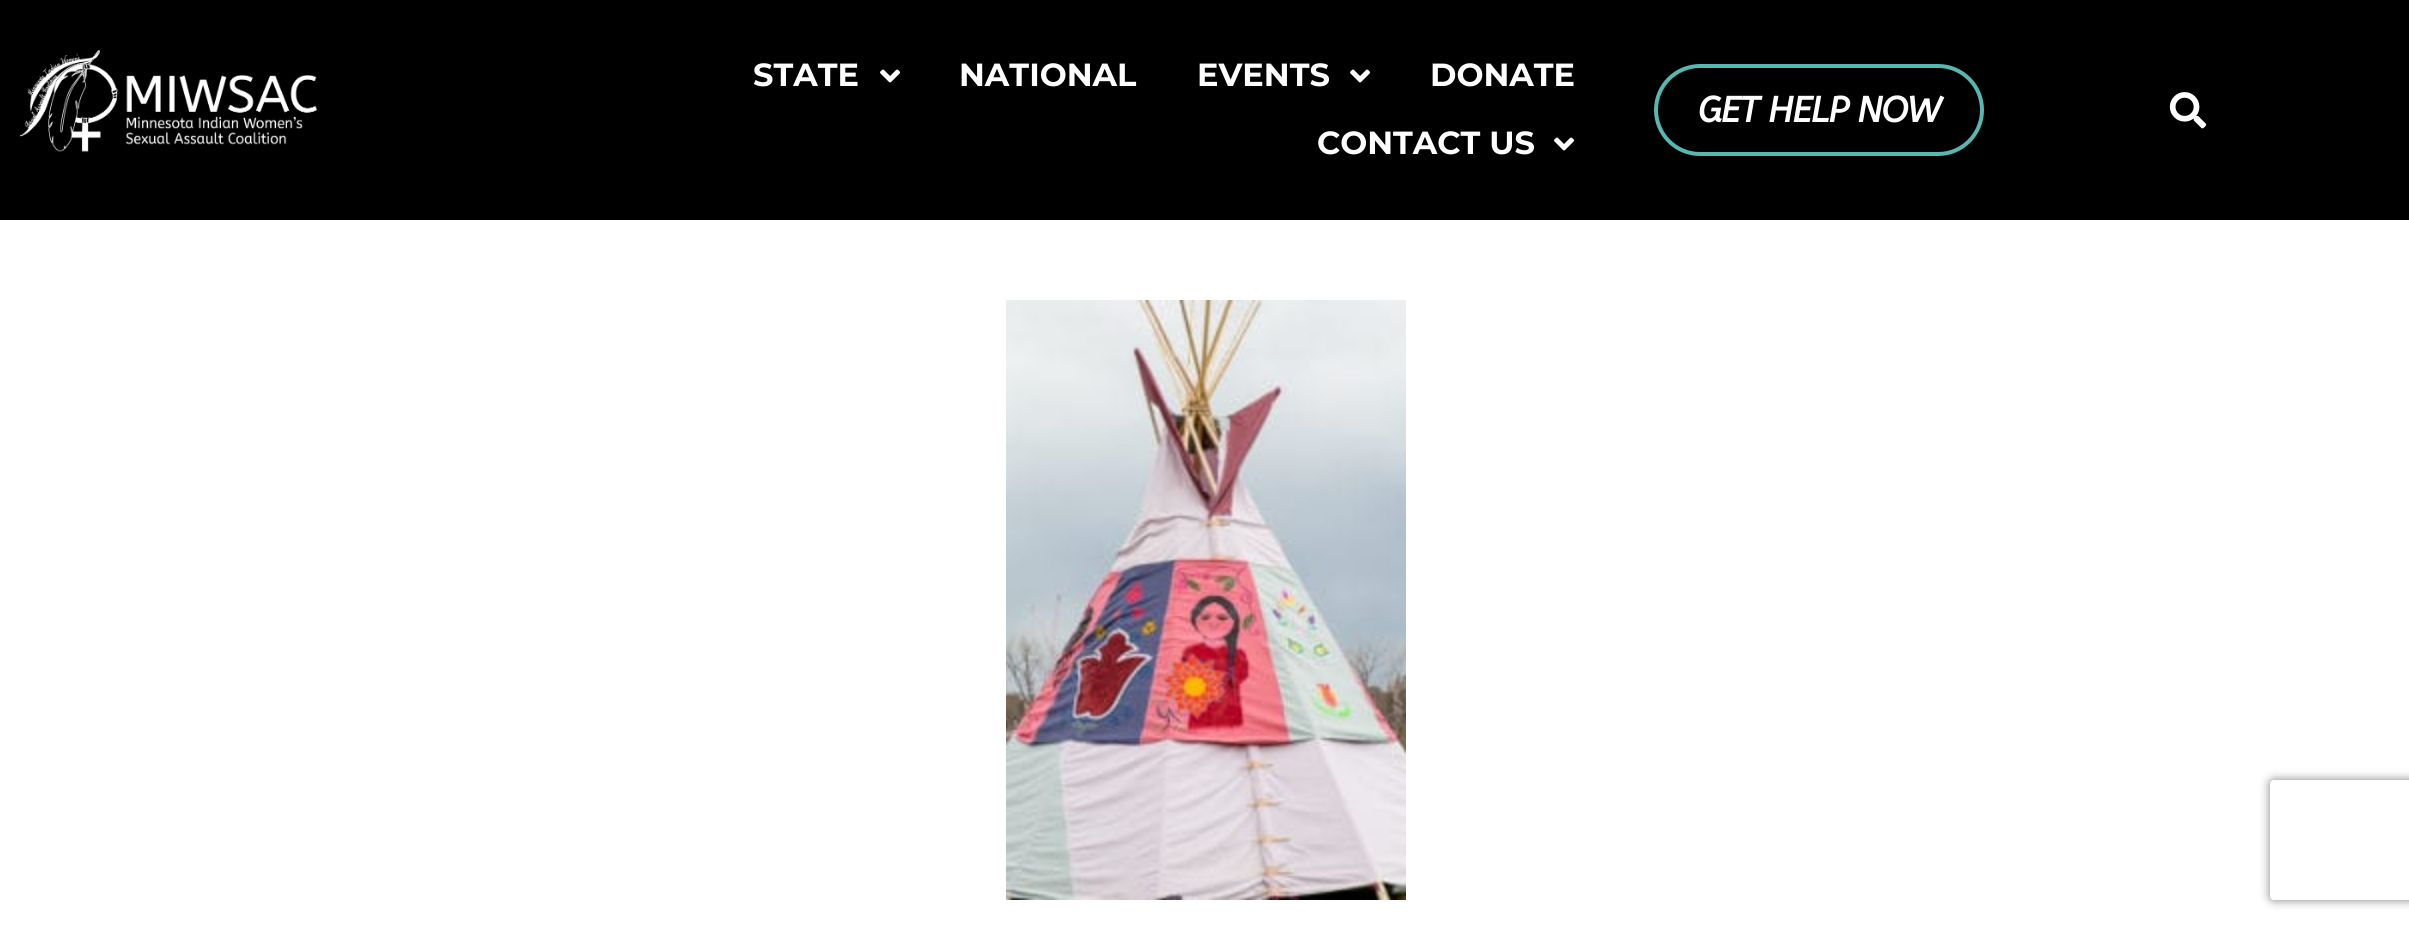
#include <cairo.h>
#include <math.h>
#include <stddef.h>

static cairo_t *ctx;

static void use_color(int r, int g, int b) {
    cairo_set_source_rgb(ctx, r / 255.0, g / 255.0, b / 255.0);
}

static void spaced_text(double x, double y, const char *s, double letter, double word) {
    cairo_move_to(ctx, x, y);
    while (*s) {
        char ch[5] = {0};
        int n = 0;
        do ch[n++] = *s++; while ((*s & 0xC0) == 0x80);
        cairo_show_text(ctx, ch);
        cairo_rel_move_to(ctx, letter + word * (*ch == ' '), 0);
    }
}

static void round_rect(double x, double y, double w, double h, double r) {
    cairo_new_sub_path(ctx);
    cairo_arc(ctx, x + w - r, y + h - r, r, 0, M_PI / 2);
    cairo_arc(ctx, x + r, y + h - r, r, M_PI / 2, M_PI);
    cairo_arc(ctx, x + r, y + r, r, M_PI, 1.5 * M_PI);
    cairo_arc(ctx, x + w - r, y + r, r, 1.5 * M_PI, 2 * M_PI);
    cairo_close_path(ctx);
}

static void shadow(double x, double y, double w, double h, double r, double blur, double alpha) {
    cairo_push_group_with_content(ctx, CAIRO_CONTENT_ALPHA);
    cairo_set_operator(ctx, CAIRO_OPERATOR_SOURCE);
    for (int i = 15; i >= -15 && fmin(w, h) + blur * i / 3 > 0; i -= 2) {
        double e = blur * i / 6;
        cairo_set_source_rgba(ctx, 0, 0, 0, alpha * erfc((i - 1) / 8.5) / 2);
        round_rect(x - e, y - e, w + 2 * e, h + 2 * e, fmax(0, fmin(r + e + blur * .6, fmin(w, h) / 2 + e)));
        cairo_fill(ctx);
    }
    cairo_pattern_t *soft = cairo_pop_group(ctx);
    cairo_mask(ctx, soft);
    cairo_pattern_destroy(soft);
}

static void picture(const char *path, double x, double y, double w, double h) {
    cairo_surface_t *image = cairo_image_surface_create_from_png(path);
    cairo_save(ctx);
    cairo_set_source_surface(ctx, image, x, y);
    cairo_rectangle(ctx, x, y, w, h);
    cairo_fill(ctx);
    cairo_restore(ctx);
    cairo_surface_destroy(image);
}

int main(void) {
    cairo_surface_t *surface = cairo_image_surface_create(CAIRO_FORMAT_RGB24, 2409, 927);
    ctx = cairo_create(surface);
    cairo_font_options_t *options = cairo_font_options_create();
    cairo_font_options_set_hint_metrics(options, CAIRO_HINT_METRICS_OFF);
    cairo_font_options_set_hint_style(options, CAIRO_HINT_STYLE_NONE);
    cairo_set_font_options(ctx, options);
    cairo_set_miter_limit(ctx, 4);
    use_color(255, 255, 255);
    cairo_paint(ctx);
    use_color(0, 0, 0);
    cairo_rectangle(ctx, 0, 0, 2409, 220);
    cairo_fill(ctx);
    picture("img1.png", 20, 50, 298, 103);
    cairo_select_font_face(ctx, "Montserrat", CAIRO_FONT_SLANT_NORMAL, CAIRO_FONT_WEIGHT_BOLD);
    cairo_set_font_size(ctx, 32);
    use_color(255, 255, 255);
    cairo_move_to(ctx, 753, 86);
    cairo_show_text(ctx, "STATE");
    picture("img2.png", 880, 69, 20, 14);
    cairo_move_to(ctx, 959, 86);
    cairo_show_text(ctx, "NATIONAL");
    cairo_move_to(ctx, 1197, 86);
    cairo_show_text(ctx, "EVENTS");
    picture("img2.png", 1350, 69, 20, 14);
    cairo_move_to(ctx, 1430, 86);
    cairo_show_text(ctx, "DONATE");
    cairo_move_to(ctx, 1317, 154);
    cairo_show_text(ctx, "CONTACT US");
    picture("img2.png", 1554, 137, 20, 14);
    round_rect(1656, 66, 326, 88, 44);
    use_color(86, 184, 177);
    cairo_set_line_width(ctx, 4);
    cairo_stroke(ctx);
    cairo_select_font_face(ctx, "ABeeZee", CAIRO_FONT_SLANT_ITALIC, CAIRO_FONT_WEIGHT_BOLD);
    cairo_set_font_size(ctx, 36);
    use_color(255, 255, 255);
    spaced_text(1698, 122, "GET HELP NOW", -1, 0);
    picture("img3.png", 2169, 92, 38, 37);
    picture("img4.png", 1006, 300, 400, 600);
    cairo_save(ctx);
    cairo_set_fill_rule(ctx, CAIRO_FILL_RULE_EVEN_ODD);
    cairo_new_path(ctx);
    cairo_move_to(ctx, 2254, 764);
    cairo_line_to(ctx, 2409, 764);
    cairo_line_to(ctx, 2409, 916);
    cairo_line_to(ctx, 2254, 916);
    cairo_close_path(ctx);
    cairo_move_to(ctx, 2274, 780);
    cairo_line_to(ctx, 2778, 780);
    cairo_curve_to(ctx, 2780, 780, 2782, 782, 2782, 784);
    cairo_line_to(ctx, 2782, 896);
    cairo_curve_to(ctx, 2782, 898, 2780, 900, 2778, 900);
    cairo_line_to(ctx, 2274, 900);
    cairo_curve_to(ctx, 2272, 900, 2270, 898, 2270, 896);
    cairo_line_to(ctx, 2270, 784);
    cairo_curve_to(ctx, 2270, 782, 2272, 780, 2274, 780);
    cairo_close_path(ctx);
    cairo_clip(ctx);
    use_color(128, 128, 128);
    shadow(2270, 780, 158, 120, 4, 5, 1);
    cairo_restore(ctx);
    cairo_surface_write_to_png(surface, "result.png");
    cairo_font_options_destroy(options);
    cairo_destroy(ctx);
    cairo_surface_destroy(surface);
    return 0;
}
